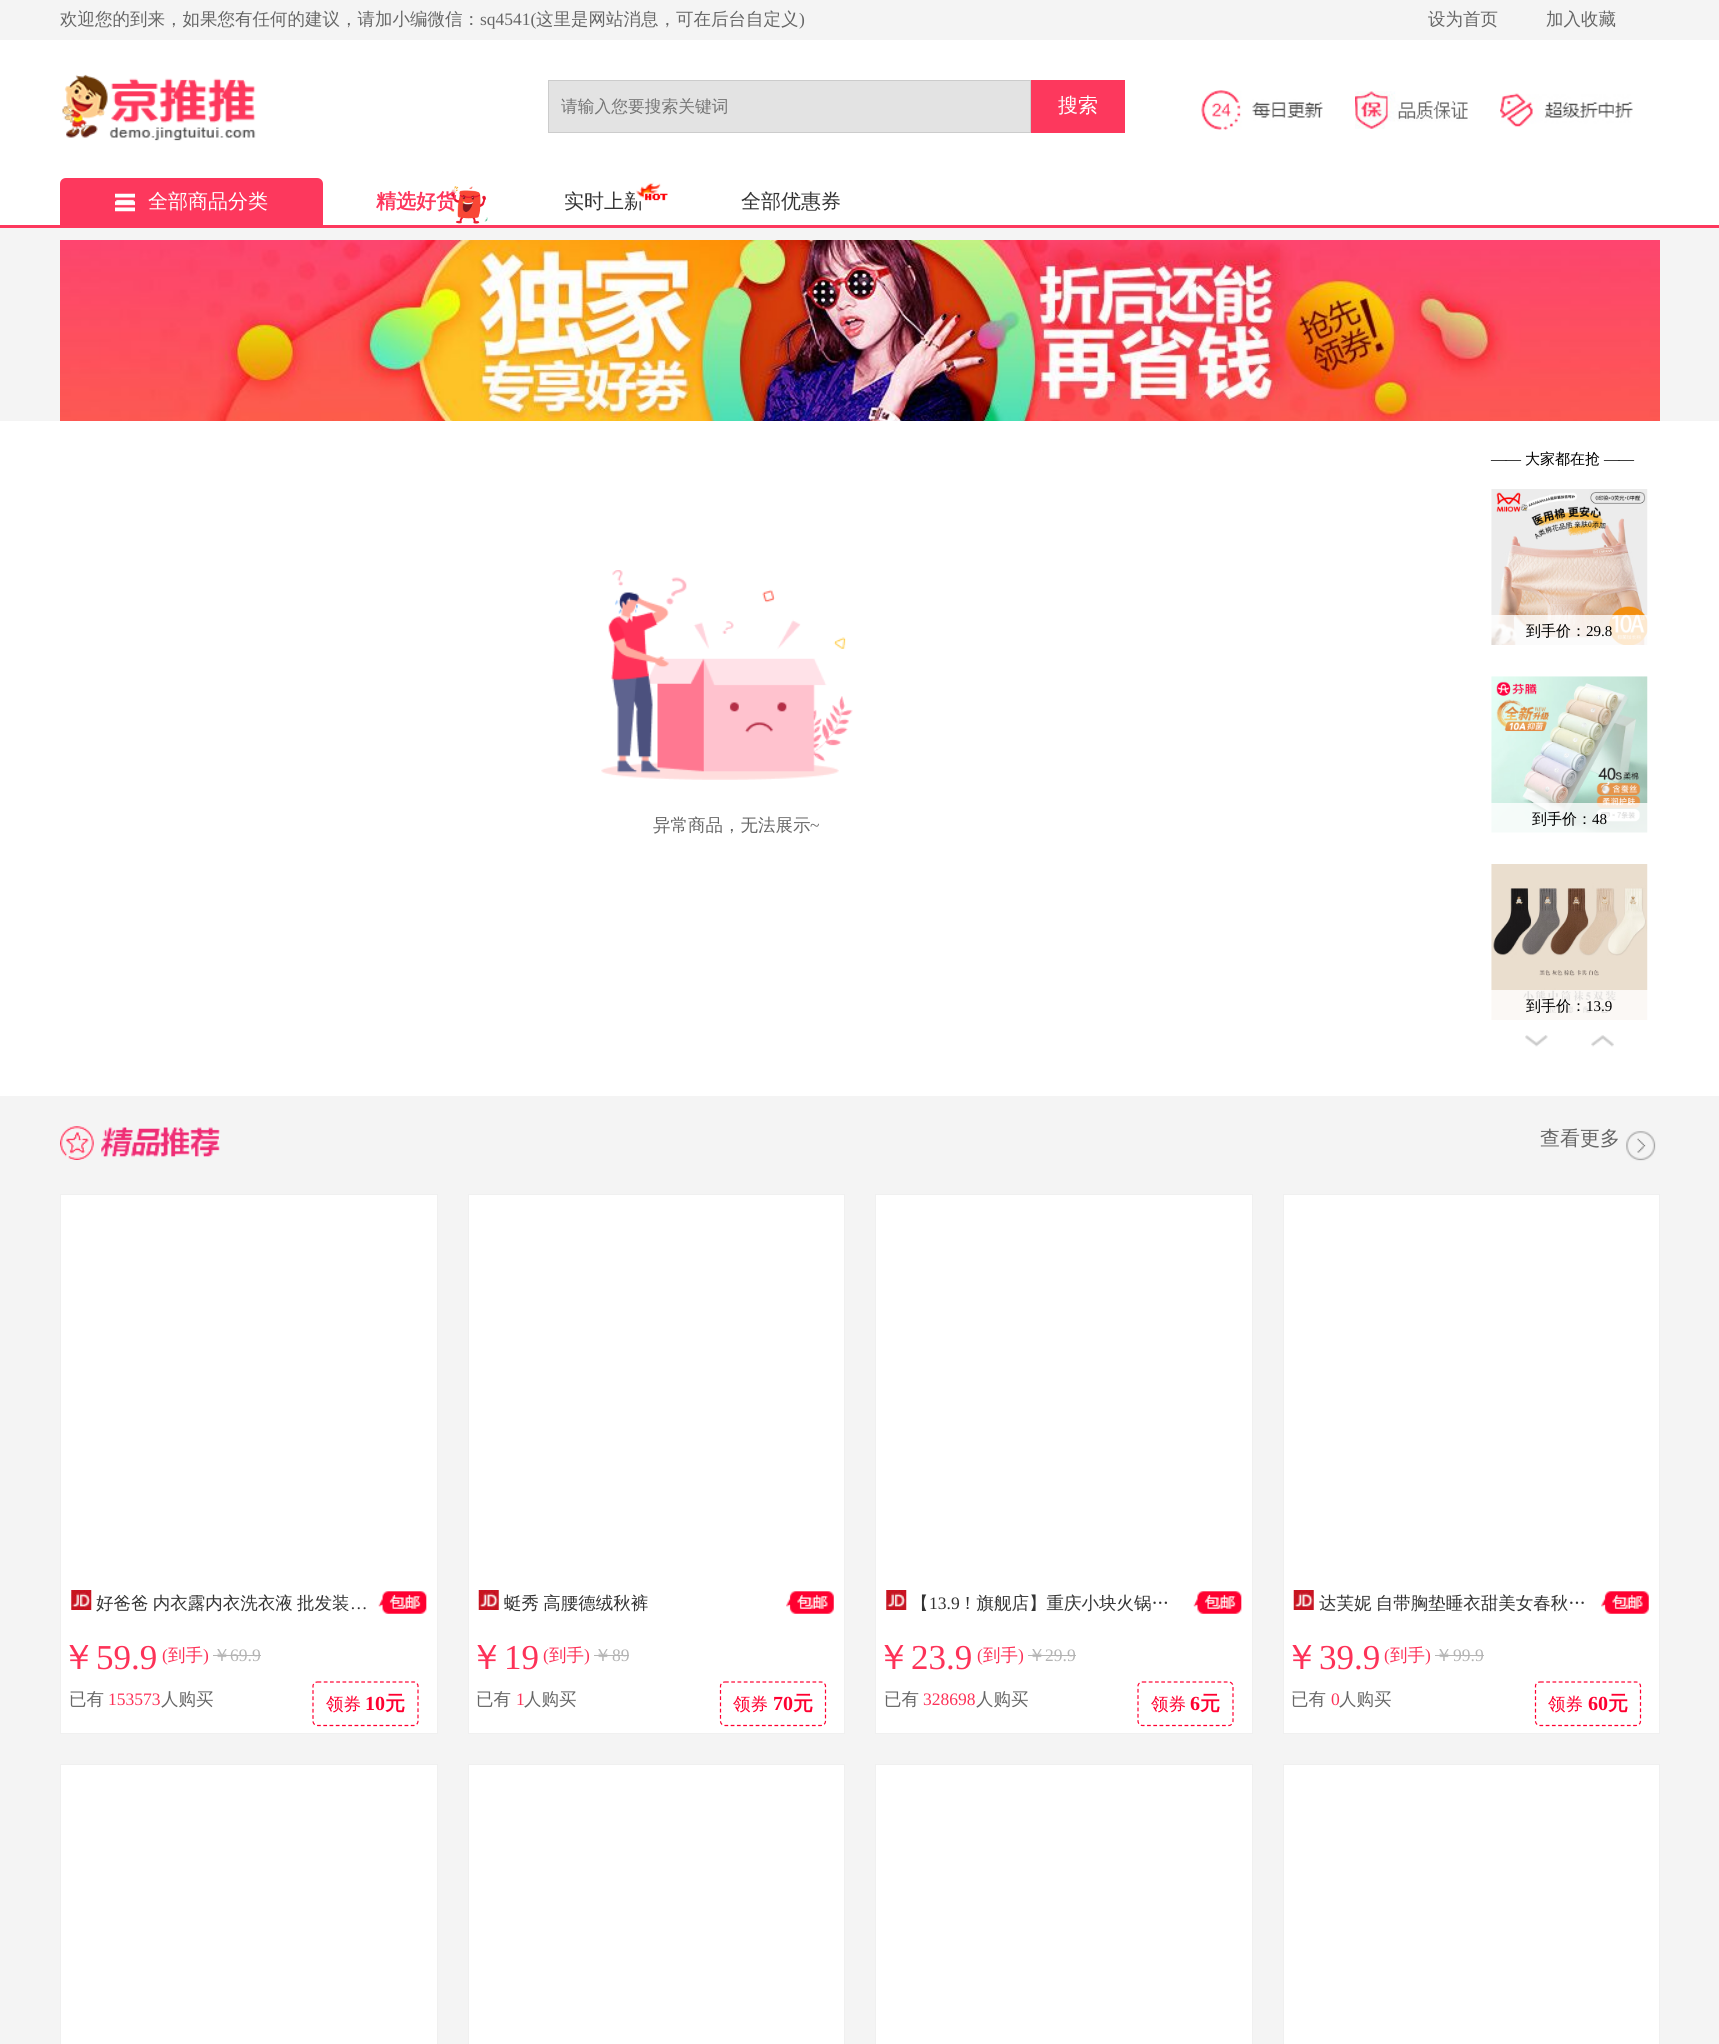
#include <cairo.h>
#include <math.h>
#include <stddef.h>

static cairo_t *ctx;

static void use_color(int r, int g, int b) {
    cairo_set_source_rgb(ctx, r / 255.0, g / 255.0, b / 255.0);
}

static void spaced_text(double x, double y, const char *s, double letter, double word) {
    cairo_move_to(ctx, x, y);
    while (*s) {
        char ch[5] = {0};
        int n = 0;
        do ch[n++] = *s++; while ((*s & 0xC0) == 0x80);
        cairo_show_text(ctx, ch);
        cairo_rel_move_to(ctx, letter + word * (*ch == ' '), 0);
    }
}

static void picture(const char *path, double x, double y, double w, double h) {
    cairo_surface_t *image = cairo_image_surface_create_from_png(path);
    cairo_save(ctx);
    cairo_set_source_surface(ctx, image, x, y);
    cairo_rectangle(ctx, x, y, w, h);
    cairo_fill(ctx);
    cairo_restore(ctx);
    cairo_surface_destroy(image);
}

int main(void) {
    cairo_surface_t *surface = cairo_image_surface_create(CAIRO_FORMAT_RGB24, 1719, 2044);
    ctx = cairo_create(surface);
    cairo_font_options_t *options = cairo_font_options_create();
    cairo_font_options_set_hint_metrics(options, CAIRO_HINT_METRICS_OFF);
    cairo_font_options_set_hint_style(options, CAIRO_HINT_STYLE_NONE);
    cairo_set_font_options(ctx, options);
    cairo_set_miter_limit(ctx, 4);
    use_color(244, 244, 244);
    cairo_paint(ctx);
    use_color(255, 255, 255);
    cairo_rectangle(ctx, 0, 40, 1719, 185);
    cairo_fill(ctx);
    cairo_select_font_face(ctx, "WenQuanYi Zen Hei Medium", CAIRO_FONT_SLANT_NORMAL, CAIRO_FONT_WEIGHT_NORMAL);
    cairo_set_font_size(ctx, 17.5);
    use_color(102, 102, 102);
    cairo_move_to(ctx, 60, 25);
    cairo_show_text(ctx, "欢迎您的到来，如果您有任何的建议，请加小编微信：");
    cairo_select_font_face(ctx, "Liberation Serif", CAIRO_FONT_SLANT_NORMAL, CAIRO_FONT_WEIGHT_NORMAL);
    cairo_move_to(ctx, 480, 25);
    cairo_show_text(ctx, "sq4541(");
    cairo_select_font_face(ctx, "WenQuanYi Zen Hei Medium", CAIRO_FONT_SLANT_NORMAL, CAIRO_FONT_WEIGHT_NORMAL);
    cairo_move_to(ctx, 536, 25);
    cairo_show_text(ctx, "这里是网站消息，可在后台自定义");
    cairo_select_font_face(ctx, "Liberation Serif", CAIRO_FONT_SLANT_NORMAL, CAIRO_FONT_WEIGHT_NORMAL);
    cairo_move_to(ctx, 799, 25);
    cairo_show_text(ctx, ")");
    cairo_select_font_face(ctx, "WenQuanYi Zen Hei Medium", CAIRO_FONT_SLANT_NORMAL, CAIRO_FONT_WEIGHT_NORMAL);
    cairo_move_to(ctx, 1428, 25);
    cairo_show_text(ctx, "设为首页");
    cairo_move_to(ctx, 1546, 25);
    cairo_show_text(ctx, "加入收藏");
    picture("img1.png", 62, 74, 194, 67);
    use_color(227, 227, 227);
    cairo_rectangle(ctx, 548.5, 80.5, 482, 52);
    cairo_fill_preserve(ctx);
    use_color(204, 204, 204);
    cairo_set_line_width(ctx, 1);
    cairo_stroke(ctx);
    cairo_set_font_size(ctx, 16.75);
    use_color(117, 117, 117);
    cairo_move_to(ctx, 561, 112);
    cairo_show_text(ctx, "请输入您要搜索关键词");
    use_color(253, 56, 93);
    cairo_rectangle(ctx, 1031, 80, 94, 53);
    cairo_fill(ctx);
    cairo_set_font_size(ctx, 20);
    use_color(255, 255, 255);
    cairo_move_to(ctx, 1058, 112);
    cairo_show_text(ctx, "搜索");
    picture("img2.png", 1201, 90, 122, 40);
    picture("img3.png", 1355, 91, 113, 38);
    picture("img4.png", 1500, 93, 133, 34);
    use_color(253, 56, 93);
    cairo_rectangle(ctx, 0, 225, 1719, 3);
    cairo_fill(ctx);
    cairo_new_path(ctx);
    cairo_move_to(ctx, 66, 178);
    cairo_line_to(ctx, 317, 178);
    cairo_curve_to(ctx, 320.5, 178, 323, 180.5, 323, 184);
    cairo_line_to(ctx, 323, 225);
    cairo_line_to(ctx, 60, 225);
    cairo_line_to(ctx, 60, 184);
    cairo_curve_to(ctx, 60, 180.5, 62.5, 178, 66, 178);
    cairo_close_path(ctx);
    cairo_fill(ctx);
    picture("img5.png", 115, 193, 20, 19);
    use_color(255, 255, 255);
    cairo_move_to(ctx, 148, 208);
    cairo_show_text(ctx, "全部商品分类");
    picture("img6.png", 450, 186, 38, 38);
    cairo_select_font_face(ctx, "WenQuanYi Zen Hei", CAIRO_FONT_SLANT_NORMAL, CAIRO_FONT_WEIGHT_BOLD);
    use_color(253, 56, 93);
    cairo_move_to(ctx, 376, 208);
    cairo_show_text(ctx, "精选好货");
    cairo_select_font_face(ctx, "WenQuanYi Zen Hei Medium", CAIRO_FONT_SLANT_NORMAL, CAIRO_FONT_WEIGHT_NORMAL);
    use_color(51, 51, 51);
    cairo_move_to(ctx, 564, 208);
    cairo_show_text(ctx, "实时上新");
    picture("img7.png", 635, 182, 33, 20);
    cairo_move_to(ctx, 741, 208);
    cairo_show_text(ctx, "全部优惠券");
    picture("img8.png", 60, 240, 1600, 181);
    use_color(255, 255, 255);
    cairo_rectangle(ctx, 0, 421, 1719, 675);
    cairo_fill(ctx);
    picture("img9.png", 601, 570, 252, 210);
    cairo_set_font_size(ctx, 17.5);
    use_color(102, 102, 102);
    cairo_move_to(ctx, 653, 831);
    cairo_show_text(ctx, "异常商品，无法展示");
    cairo_select_font_face(ctx, "Liberation Serif", CAIRO_FONT_SLANT_NORMAL, CAIRO_FONT_WEIGHT_NORMAL);
    cairo_move_to(ctx, 810, 831);
    cairo_show_text(ctx, "~");
    cairo_set_font_size(ctx, 15);
    use_color(0, 0, 0);
    cairo_move_to(ctx, 1491, 464);
    cairo_show_text(ctx, "——");
    cairo_select_font_face(ctx, "WenQuanYi Zen Hei Medium", CAIRO_FONT_SLANT_NORMAL, CAIRO_FONT_WEIGHT_NORMAL);
    cairo_move_to(ctx, 1525, 464);
    cairo_show_text(ctx, "大家都在抢");
    cairo_select_font_face(ctx, "Liberation Serif", CAIRO_FONT_SLANT_NORMAL, CAIRO_FONT_WEIGHT_NORMAL);
    cairo_move_to(ctx, 1604, 464);
    cairo_show_text(ctx, "——");
    picture("img10.png", 1491, 489, 157, 156);
    cairo_set_source_rgba(ctx, 1, 1, 1, 0.8);
    cairo_rectangle(ctx, 1491, 615, 157, 30);
    cairo_fill(ctx);
    cairo_select_font_face(ctx, "WenQuanYi Zen Hei Medium", CAIRO_FONT_SLANT_NORMAL, CAIRO_FONT_WEIGHT_NORMAL);
    use_color(0, 0, 0);
    cairo_move_to(ctx, 1526, 636);
    cairo_show_text(ctx, "到手价：");
    cairo_select_font_face(ctx, "Liberation Serif", CAIRO_FONT_SLANT_NORMAL, CAIRO_FONT_WEIGHT_NORMAL);
    cairo_move_to(ctx, 1586, 636);
    cairo_show_text(ctx, "29.8");
    picture("img11.png", 1491, 676, 157, 157);
    cairo_set_source_rgba(ctx, 1, 1, 1, 0.8);
    cairo_rectangle(ctx, 1491, 803, 157, 30);
    cairo_fill(ctx);
    cairo_select_font_face(ctx, "WenQuanYi Zen Hei Medium", CAIRO_FONT_SLANT_NORMAL, CAIRO_FONT_WEIGHT_NORMAL);
    use_color(0, 0, 0);
    cairo_move_to(ctx, 1532, 824);
    cairo_show_text(ctx, "到手价：");
    cairo_select_font_face(ctx, "Liberation Serif", CAIRO_FONT_SLANT_NORMAL, CAIRO_FONT_WEIGHT_NORMAL);
    cairo_move_to(ctx, 1592, 824);
    cairo_show_text(ctx, "48");
    picture("img12.png", 1491, 864, 157, 156);
    cairo_set_source_rgba(ctx, 1, 1, 1, 0.8);
    cairo_rectangle(ctx, 1491, 990, 157, 30);
    cairo_fill(ctx);
    cairo_select_font_face(ctx, "WenQuanYi Zen Hei Medium", CAIRO_FONT_SLANT_NORMAL, CAIRO_FONT_WEIGHT_NORMAL);
    use_color(0, 0, 0);
    cairo_move_to(ctx, 1526, 1011);
    cairo_show_text(ctx, "到手价：");
    cairo_select_font_face(ctx, "Liberation Serif", CAIRO_FONT_SLANT_NORMAL, CAIRO_FONT_WEIGHT_NORMAL);
    cairo_move_to(ctx, 1586, 1011);
    cairo_show_text(ctx, "13.9");
    picture("img13.png", 1525, 1035, 23, 12);
    picture("img14.png", 1591, 1035, 23, 12);
    picture("img15.png", 60, 1126, 160, 34);
    cairo_select_font_face(ctx, "WenQuanYi Zen Hei Medium", CAIRO_FONT_SLANT_NORMAL, CAIRO_FONT_WEIGHT_NORMAL);
    cairo_set_font_size(ctx, 20);
    use_color(102, 102, 102);
    cairo_move_to(ctx, 1540, 1145);
    cairo_show_text(ctx, "查看更多");
    picture("img16.png", 1626, 1131, 30, 30);
    use_color(255, 255, 255);
    cairo_rectangle(ctx, 60.5, 1194.5, 377, 539);
    cairo_fill_preserve(ctx);
    use_color(240, 240, 240);
    cairo_stroke(ctx);
    picture("img17.png", 71, 1590, 21, 20);
    cairo_set_font_size(ctx, 17.5);
    use_color(51, 51, 51);
    spaced_text(96, 1609, "好爸爸 内衣露内衣洗衣液 批发装", 0, -1);
    cairo_select_font_face(ctx, "Liberation Serif", CAIRO_FONT_SLANT_NORMAL, CAIRO_FONT_WEIGHT_NORMAL);
    cairo_move_to(ctx, 350, 1609);
    cairo_show_text(ctx, "…");
    picture("img18.png", 378, 1591, 49, 23);
    cairo_select_font_face(ctx, "WenQuanYi Zen Hei Medium", CAIRO_FONT_SLANT_NORMAL, CAIRO_FONT_WEIGHT_NORMAL);
    cairo_set_font_size(ctx, 35);
    use_color(253, 50, 88);
    cairo_move_to(ctx, 61, 1669);
    cairo_show_text(ctx, "￥");
    cairo_select_font_face(ctx, "Liberation Serif", CAIRO_FONT_SLANT_NORMAL, CAIRO_FONT_WEIGHT_NORMAL);
    cairo_move_to(ctx, 96, 1669);
    cairo_show_text(ctx, "59.9");
    cairo_set_font_size(ctx, 17.5);
    cairo_move_to(ctx, 162, 1661);
    cairo_show_text(ctx, "(");
    cairo_select_font_face(ctx, "WenQuanYi Zen Hei Medium", CAIRO_FONT_SLANT_NORMAL, CAIRO_FONT_WEIGHT_NORMAL);
    cairo_move_to(ctx, 168, 1661);
    cairo_show_text(ctx, "到手");
    cairo_select_font_face(ctx, "Liberation Serif", CAIRO_FONT_SLANT_NORMAL, CAIRO_FONT_WEIGHT_NORMAL);
    cairo_move_to(ctx, 203, 1661);
    cairo_show_text(ctx, ")");
    cairo_select_font_face(ctx, "WenQuanYi Zen Hei Medium", CAIRO_FONT_SLANT_NORMAL, CAIRO_FONT_WEIGHT_NORMAL);
    use_color(180, 180, 180);
    cairo_move_to(ctx, 213, 1661);
    cairo_show_text(ctx, "￥");
    cairo_select_font_face(ctx, "Liberation Serif", CAIRO_FONT_SLANT_NORMAL, CAIRO_FONT_WEIGHT_NORMAL);
    cairo_move_to(ctx, 230, 1661);
    cairo_show_text(ctx, "69.9");
    cairo_rectangle(ctx, 213, 1655, 48, 1);
    cairo_fill(ctx);
    cairo_select_font_face(ctx, "WenQuanYi Zen Hei Medium", CAIRO_FONT_SLANT_NORMAL, CAIRO_FONT_WEIGHT_NORMAL);
    use_color(102, 102, 102);
    cairo_move_to(ctx, 69, 1705);
    cairo_show_text(ctx, "已有");
    cairo_select_font_face(ctx, "Liberation Serif", CAIRO_FONT_SLANT_NORMAL, CAIRO_FONT_WEIGHT_NORMAL);
    use_color(253, 50, 88);
    cairo_move_to(ctx, 108, 1705);
    cairo_show_text(ctx, "153573");
    cairo_select_font_face(ctx, "WenQuanYi Zen Hei Medium", CAIRO_FONT_SLANT_NORMAL, CAIRO_FONT_WEIGHT_NORMAL);
    use_color(102, 102, 102);
    cairo_move_to(ctx, 161, 1705);
    cairo_show_text(ctx, "人购买");
    cairo_new_path(ctx);
    cairo_move_to(ctx, 317.5, 1682);
    cairo_line_to(ctx, 414, 1682);
    cairo_curve_to(ctx, 416, 1682, 418, 1684, 418, 1686);
    cairo_line_to(ctx, 418, 1721);
    cairo_curve_to(ctx, 418, 1723.5, 416, 1725.5, 414, 1725.5);
    cairo_line_to(ctx, 317.5, 1725.5);
    cairo_curve_to(ctx, 315, 1725.5, 313, 1723.5, 313, 1721);
    cairo_line_to(ctx, 313, 1686);
    cairo_curve_to(ctx, 313, 1684, 315, 1682, 317.5, 1682);
    cairo_close_path(ctx);
    use_color(255, 0, 48);
    cairo_set_line_width(ctx, 1.2);
    cairo_set_dash(ctx, (double[]){3.75, 2.5}, 2, 0);
    cairo_stroke(ctx);
    cairo_move_to(ctx, 326, 1710);
    cairo_show_text(ctx, "领券");
    cairo_select_font_face(ctx, "Liberation Serif", CAIRO_FONT_SLANT_NORMAL, CAIRO_FONT_WEIGHT_BOLD);
    cairo_set_font_size(ctx, 20);
    cairo_move_to(ctx, 365, 1710);
    cairo_show_text(ctx, "10");
    cairo_select_font_face(ctx, "WenQuanYi Zen Hei", CAIRO_FONT_SLANT_NORMAL, CAIRO_FONT_WEIGHT_BOLD);
    cairo_move_to(ctx, 385, 1710);
    cairo_show_text(ctx, "元");
    use_color(255, 255, 255);
    cairo_rectangle(ctx, 468.5, 1194.5, 376, 539);
    cairo_fill_preserve(ctx);
    use_color(240, 240, 240);
    cairo_set_line_width(ctx, 1);
    cairo_set_dash(ctx, NULL, 0, 0);
    cairo_stroke(ctx);
    picture("img19.png", 478, 1590, 21, 20);
    cairo_select_font_face(ctx, "WenQuanYi Zen Hei Medium", CAIRO_FONT_SLANT_NORMAL, CAIRO_FONT_WEIGHT_NORMAL);
    cairo_set_font_size(ctx, 17.5);
    use_color(51, 51, 51);
    spaced_text(504, 1609, "蜓秀 高腰德绒秋裤", 0, -1);
    picture("img20.png", 786, 1591, 48, 23);
    cairo_set_font_size(ctx, 35);
    use_color(253, 50, 88);
    cairo_move_to(ctx, 469, 1669);
    cairo_show_text(ctx, "￥");
    cairo_select_font_face(ctx, "Liberation Serif", CAIRO_FONT_SLANT_NORMAL, CAIRO_FONT_WEIGHT_NORMAL);
    cairo_move_to(ctx, 504, 1669);
    cairo_show_text(ctx, "19");
    cairo_set_font_size(ctx, 17.5);
    cairo_move_to(ctx, 543, 1661);
    cairo_show_text(ctx, "(");
    cairo_select_font_face(ctx, "WenQuanYi Zen Hei Medium", CAIRO_FONT_SLANT_NORMAL, CAIRO_FONT_WEIGHT_NORMAL);
    cairo_move_to(ctx, 549, 1661);
    cairo_show_text(ctx, "到手");
    cairo_select_font_face(ctx, "Liberation Serif", CAIRO_FONT_SLANT_NORMAL, CAIRO_FONT_WEIGHT_NORMAL);
    cairo_move_to(ctx, 584, 1661);
    cairo_show_text(ctx, ")");
    cairo_select_font_face(ctx, "WenQuanYi Zen Hei Medium", CAIRO_FONT_SLANT_NORMAL, CAIRO_FONT_WEIGHT_NORMAL);
    use_color(180, 180, 180);
    cairo_move_to(ctx, 594, 1661);
    cairo_show_text(ctx, "￥");
    cairo_select_font_face(ctx, "Liberation Serif", CAIRO_FONT_SLANT_NORMAL, CAIRO_FONT_WEIGHT_NORMAL);
    cairo_move_to(ctx, 612, 1661);
    cairo_show_text(ctx, "89");
    cairo_rectangle(ctx, 594, 1655, 35, 1);
    cairo_fill(ctx);
    cairo_select_font_face(ctx, "WenQuanYi Zen Hei Medium", CAIRO_FONT_SLANT_NORMAL, CAIRO_FONT_WEIGHT_NORMAL);
    use_color(102, 102, 102);
    cairo_move_to(ctx, 476, 1705);
    cairo_show_text(ctx, "已有");
    cairo_select_font_face(ctx, "Liberation Serif", CAIRO_FONT_SLANT_NORMAL, CAIRO_FONT_WEIGHT_NORMAL);
    use_color(253, 50, 88);
    cairo_move_to(ctx, 516, 1705);
    cairo_show_text(ctx, "1");
    cairo_select_font_face(ctx, "WenQuanYi Zen Hei Medium", CAIRO_FONT_SLANT_NORMAL, CAIRO_FONT_WEIGHT_NORMAL);
    use_color(102, 102, 102);
    cairo_move_to(ctx, 524, 1705);
    cairo_show_text(ctx, "人购买");
    cairo_new_path(ctx);
    cairo_move_to(ctx, 725, 1682);
    cairo_line_to(ctx, 821, 1682);
    cairo_curve_to(ctx, 823.5, 1682, 825.5, 1684, 825.5, 1686);
    cairo_line_to(ctx, 825.5, 1721);
    cairo_curve_to(ctx, 825.5, 1723.5, 823.5, 1725.5, 821, 1725.5);
    cairo_line_to(ctx, 725, 1725.5);
    cairo_curve_to(ctx, 722.5, 1725.5, 720.5, 1723.5, 720.5, 1721);
    cairo_line_to(ctx, 720.5, 1686);
    cairo_curve_to(ctx, 720.5, 1684, 722.5, 1682, 725, 1682);
    cairo_close_path(ctx);
    use_color(255, 0, 48);
    cairo_set_line_width(ctx, 1.2);
    cairo_set_dash(ctx, (double[]){3.75, 2.5}, 2, 0);
    cairo_stroke(ctx);
    cairo_move_to(ctx, 733, 1710);
    cairo_show_text(ctx, "领券");
    cairo_select_font_face(ctx, "Liberation Serif", CAIRO_FONT_SLANT_NORMAL, CAIRO_FONT_WEIGHT_BOLD);
    cairo_set_font_size(ctx, 20);
    cairo_move_to(ctx, 773, 1710);
    cairo_show_text(ctx, "70");
    cairo_select_font_face(ctx, "WenQuanYi Zen Hei", CAIRO_FONT_SLANT_NORMAL, CAIRO_FONT_WEIGHT_BOLD);
    cairo_move_to(ctx, 793, 1710);
    cairo_show_text(ctx, "元");
    use_color(255, 255, 255);
    cairo_rectangle(ctx, 875.5, 1194.5, 377, 539);
    cairo_fill_preserve(ctx);
    use_color(240, 240, 240);
    cairo_set_line_width(ctx, 1);
    cairo_set_dash(ctx, NULL, 0, 0);
    cairo_stroke(ctx);
    picture("img17.png", 886, 1590, 21, 20);
    cairo_select_font_face(ctx, "WenQuanYi Zen Hei Medium", CAIRO_FONT_SLANT_NORMAL, CAIRO_FONT_WEIGHT_NORMAL);
    cairo_set_font_size(ctx, 17.5);
    use_color(51, 51, 51);
    cairo_move_to(ctx, 911, 1609);
    cairo_show_text(ctx, "【");
    cairo_select_font_face(ctx, "Liberation Serif", CAIRO_FONT_SLANT_NORMAL, CAIRO_FONT_WEIGHT_NORMAL);
    cairo_move_to(ctx, 929, 1609);
    cairo_show_text(ctx, "13.9");
    cairo_select_font_face(ctx, "WenQuanYi Zen Hei Medium", CAIRO_FONT_SLANT_NORMAL, CAIRO_FONT_WEIGHT_NORMAL);
    cairo_move_to(ctx, 959, 1609);
    cairo_show_text(ctx, "！旗舰店】重庆小块火锅…");
    picture("img21.png", 1193, 1591, 49, 23);
    cairo_set_font_size(ctx, 35);
    use_color(253, 50, 88);
    cairo_move_to(ctx, 876, 1669);
    cairo_show_text(ctx, "￥");
    cairo_select_font_face(ctx, "Liberation Serif", CAIRO_FONT_SLANT_NORMAL, CAIRO_FONT_WEIGHT_NORMAL);
    cairo_move_to(ctx, 911, 1669);
    cairo_show_text(ctx, "23.9");
    cairo_set_font_size(ctx, 17.5);
    cairo_move_to(ctx, 977, 1661);
    cairo_show_text(ctx, "(");
    cairo_select_font_face(ctx, "WenQuanYi Zen Hei Medium", CAIRO_FONT_SLANT_NORMAL, CAIRO_FONT_WEIGHT_NORMAL);
    cairo_move_to(ctx, 983, 1661);
    cairo_show_text(ctx, "到手");
    cairo_select_font_face(ctx, "Liberation Serif", CAIRO_FONT_SLANT_NORMAL, CAIRO_FONT_WEIGHT_NORMAL);
    cairo_move_to(ctx, 1018, 1661);
    cairo_show_text(ctx, ")");
    cairo_select_font_face(ctx, "WenQuanYi Zen Hei Medium", CAIRO_FONT_SLANT_NORMAL, CAIRO_FONT_WEIGHT_NORMAL);
    use_color(180, 180, 180);
    cairo_move_to(ctx, 1028, 1661);
    cairo_show_text(ctx, "￥");
    cairo_select_font_face(ctx, "Liberation Serif", CAIRO_FONT_SLANT_NORMAL, CAIRO_FONT_WEIGHT_NORMAL);
    cairo_move_to(ctx, 1045, 1661);
    cairo_show_text(ctx, "29.9");
    cairo_rectangle(ctx, 1028, 1655, 48, 1);
    cairo_fill(ctx);
    cairo_select_font_face(ctx, "WenQuanYi Zen Hei Medium", CAIRO_FONT_SLANT_NORMAL, CAIRO_FONT_WEIGHT_NORMAL);
    use_color(102, 102, 102);
    cairo_move_to(ctx, 884, 1705);
    cairo_show_text(ctx, "已有");
    cairo_select_font_face(ctx, "Liberation Serif", CAIRO_FONT_SLANT_NORMAL, CAIRO_FONT_WEIGHT_NORMAL);
    use_color(253, 50, 88);
    cairo_move_to(ctx, 923, 1705);
    cairo_show_text(ctx, "328698");
    cairo_select_font_face(ctx, "WenQuanYi Zen Hei Medium", CAIRO_FONT_SLANT_NORMAL, CAIRO_FONT_WEIGHT_NORMAL);
    use_color(102, 102, 102);
    cairo_move_to(ctx, 976, 1705);
    cairo_show_text(ctx, "人购买");
    cairo_new_path(ctx);
    cairo_move_to(ctx, 1142.5, 1682);
    cairo_line_to(ctx, 1229, 1682);
    cairo_curve_to(ctx, 1231, 1682, 1233, 1684, 1233, 1686);
    cairo_line_to(ctx, 1233, 1721);
    cairo_curve_to(ctx, 1233, 1723.5, 1231, 1725.5, 1229, 1725.5);
    cairo_line_to(ctx, 1142.5, 1725.5);
    cairo_curve_to(ctx, 1140, 1725.5, 1138, 1723.5, 1138, 1721);
    cairo_line_to(ctx, 1138, 1686);
    cairo_curve_to(ctx, 1138, 1684, 1140, 1682, 1142.5, 1682);
    cairo_close_path(ctx);
    use_color(255, 0, 48);
    cairo_set_line_width(ctx, 1.2);
    cairo_set_dash(ctx, (double[]){3.75, 2.5}, 2, 0);
    cairo_stroke(ctx);
    cairo_move_to(ctx, 1151, 1710);
    cairo_show_text(ctx, "领券");
    cairo_select_font_face(ctx, "Liberation Serif", CAIRO_FONT_SLANT_NORMAL, CAIRO_FONT_WEIGHT_BOLD);
    cairo_set_font_size(ctx, 20);
    cairo_move_to(ctx, 1190, 1710);
    cairo_show_text(ctx, "6");
    cairo_select_font_face(ctx, "WenQuanYi Zen Hei", CAIRO_FONT_SLANT_NORMAL, CAIRO_FONT_WEIGHT_BOLD);
    cairo_move_to(ctx, 1200, 1710);
    cairo_show_text(ctx, "元");
    use_color(255, 255, 255);
    cairo_rectangle(ctx, 1283.5, 1194.5, 376, 539);
    cairo_fill_preserve(ctx);
    use_color(240, 240, 240);
    cairo_set_line_width(ctx, 1);
    cairo_set_dash(ctx, NULL, 0, 0);
    cairo_stroke(ctx);
    picture("img19.png", 1293, 1590, 21, 20);
    cairo_select_font_face(ctx, "WenQuanYi Zen Hei Medium", CAIRO_FONT_SLANT_NORMAL, CAIRO_FONT_WEIGHT_NORMAL);
    cairo_set_font_size(ctx, 17.5);
    use_color(51, 51, 51);
    spaced_text(1319, 1609, "达芙妮 自带胸垫睡衣甜美女春秋…", 0, -1);
    picture("img20.png", 1601, 1591, 48, 23);
    cairo_set_font_size(ctx, 35);
    use_color(253, 50, 88);
    cairo_move_to(ctx, 1284, 1669);
    cairo_show_text(ctx, "￥");
    cairo_select_font_face(ctx, "Liberation Serif", CAIRO_FONT_SLANT_NORMAL, CAIRO_FONT_WEIGHT_NORMAL);
    cairo_move_to(ctx, 1319, 1669);
    cairo_show_text(ctx, "39.9");
    cairo_set_font_size(ctx, 17.5);
    cairo_move_to(ctx, 1384, 1661);
    cairo_show_text(ctx, "(");
    cairo_select_font_face(ctx, "WenQuanYi Zen Hei Medium", CAIRO_FONT_SLANT_NORMAL, CAIRO_FONT_WEIGHT_NORMAL);
    cairo_move_to(ctx, 1390, 1661);
    cairo_show_text(ctx, "到手");
    cairo_select_font_face(ctx, "Liberation Serif", CAIRO_FONT_SLANT_NORMAL, CAIRO_FONT_WEIGHT_NORMAL);
    cairo_move_to(ctx, 1425, 1661);
    cairo_show_text(ctx, ")");
    cairo_select_font_face(ctx, "WenQuanYi Zen Hei Medium", CAIRO_FONT_SLANT_NORMAL, CAIRO_FONT_WEIGHT_NORMAL);
    use_color(180, 180, 180);
    cairo_move_to(ctx, 1435, 1661);
    cairo_show_text(ctx, "￥");
    cairo_select_font_face(ctx, "Liberation Serif", CAIRO_FONT_SLANT_NORMAL, CAIRO_FONT_WEIGHT_NORMAL);
    cairo_move_to(ctx, 1453, 1661);
    cairo_show_text(ctx, "99.9");
    cairo_rectangle(ctx, 1435, 1655, 49, 1);
    cairo_fill(ctx);
    cairo_select_font_face(ctx, "WenQuanYi Zen Hei Medium", CAIRO_FONT_SLANT_NORMAL, CAIRO_FONT_WEIGHT_NORMAL);
    use_color(102, 102, 102);
    cairo_move_to(ctx, 1291, 1705);
    cairo_show_text(ctx, "已有");
    cairo_select_font_face(ctx, "Liberation Serif", CAIRO_FONT_SLANT_NORMAL, CAIRO_FONT_WEIGHT_NORMAL);
    use_color(253, 50, 88);
    cairo_move_to(ctx, 1331, 1705);
    cairo_show_text(ctx, "0");
    cairo_select_font_face(ctx, "WenQuanYi Zen Hei Medium", CAIRO_FONT_SLANT_NORMAL, CAIRO_FONT_WEIGHT_NORMAL);
    use_color(102, 102, 102);
    cairo_move_to(ctx, 1339, 1705);
    cairo_show_text(ctx, "人购买");
    cairo_new_path(ctx);
    cairo_move_to(ctx, 1540, 1682);
    cairo_line_to(ctx, 1636, 1682);
    cairo_curve_to(ctx, 1638.5, 1682, 1640.5, 1684, 1640.5, 1686);
    cairo_line_to(ctx, 1640.5, 1721);
    cairo_curve_to(ctx, 1640.5, 1723.5, 1638.5, 1725.5, 1636, 1725.5);
    cairo_line_to(ctx, 1540, 1725.5);
    cairo_curve_to(ctx, 1537.5, 1725.5, 1535.5, 1723.5, 1535.5, 1721);
    cairo_line_to(ctx, 1535.5, 1686);
    cairo_curve_to(ctx, 1535.5, 1684, 1537.5, 1682, 1540, 1682);
    cairo_close_path(ctx);
    use_color(255, 0, 48);
    cairo_set_line_width(ctx, 1.2);
    cairo_set_dash(ctx, (double[]){3.75, 2.5}, 2, 0);
    cairo_stroke(ctx);
    cairo_move_to(ctx, 1548, 1710);
    cairo_show_text(ctx, "领券");
    cairo_select_font_face(ctx, "Liberation Serif", CAIRO_FONT_SLANT_NORMAL, CAIRO_FONT_WEIGHT_BOLD);
    cairo_set_font_size(ctx, 20);
    cairo_move_to(ctx, 1588, 1710);
    cairo_show_text(ctx, "60");
    cairo_select_font_face(ctx, "WenQuanYi Zen Hei", CAIRO_FONT_SLANT_NORMAL, CAIRO_FONT_WEIGHT_BOLD);
    cairo_move_to(ctx, 1608, 1710);
    cairo_show_text(ctx, "元");
    use_color(255, 255, 255);
    cairo_rectangle(ctx, 60.5, 1764.5, 377, 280);
    cairo_fill_preserve(ctx);
    use_color(240, 240, 240);
    cairo_set_line_width(ctx, 1);
    cairo_set_dash(ctx, NULL, 0, 0);
    cairo_stroke(ctx);
    use_color(255, 255, 255);
    cairo_rectangle(ctx, 468.5, 1764.5, 376, 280);
    cairo_fill_preserve(ctx);
    use_color(240, 240, 240);
    cairo_stroke(ctx);
    use_color(255, 255, 255);
    cairo_rectangle(ctx, 875.5, 1764.5, 377, 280);
    cairo_fill_preserve(ctx);
    use_color(240, 240, 240);
    cairo_stroke(ctx);
    use_color(255, 255, 255);
    cairo_rectangle(ctx, 1283.5, 1764.5, 376, 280);
    cairo_fill_preserve(ctx);
    use_color(240, 240, 240);
    cairo_stroke(ctx);
    cairo_surface_write_to_png(surface, "result.png");
    cairo_font_options_destroy(options);
    cairo_destroy(ctx);
    cairo_surface_destroy(surface);
    return 0;
}
